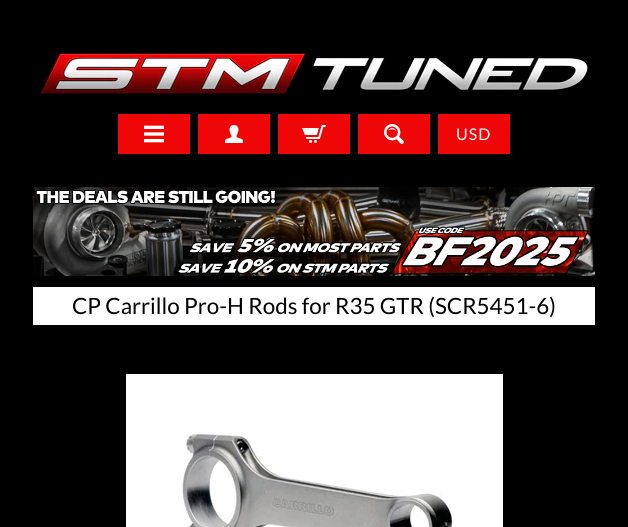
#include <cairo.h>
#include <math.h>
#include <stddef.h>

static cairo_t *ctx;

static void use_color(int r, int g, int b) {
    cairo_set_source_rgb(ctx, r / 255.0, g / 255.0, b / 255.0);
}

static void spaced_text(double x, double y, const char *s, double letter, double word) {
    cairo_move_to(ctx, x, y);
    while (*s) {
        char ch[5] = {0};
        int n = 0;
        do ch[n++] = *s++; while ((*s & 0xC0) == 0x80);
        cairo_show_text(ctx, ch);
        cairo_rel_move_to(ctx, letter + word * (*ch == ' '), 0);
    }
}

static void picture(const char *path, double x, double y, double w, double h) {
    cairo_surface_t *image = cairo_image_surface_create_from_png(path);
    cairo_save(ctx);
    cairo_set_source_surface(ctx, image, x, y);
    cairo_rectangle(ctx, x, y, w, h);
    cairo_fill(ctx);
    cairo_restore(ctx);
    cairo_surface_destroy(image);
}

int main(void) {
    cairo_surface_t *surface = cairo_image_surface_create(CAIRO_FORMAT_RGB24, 628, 527);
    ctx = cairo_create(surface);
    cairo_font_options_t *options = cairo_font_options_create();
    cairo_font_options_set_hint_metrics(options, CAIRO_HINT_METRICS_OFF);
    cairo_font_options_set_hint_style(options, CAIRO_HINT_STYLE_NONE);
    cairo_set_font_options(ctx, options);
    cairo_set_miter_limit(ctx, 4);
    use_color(0, 0, 0);
    cairo_paint(ctx);
    picture("img1.png", 40, 53, 548, 41);
    use_color(239, 6, 6);
    cairo_rectangle(ctx, 118, 114, 72, 40);
    cairo_fill(ctx);
    picture("img2.png", 144, 125, 20, 18);
    cairo_rectangle(ctx, 198, 114, 72, 40);
    cairo_fill(ctx);
    picture("img3.png", 225, 125, 18, 18);
    cairo_rectangle(ctx, 278, 114, 72, 40);
    cairo_fill(ctx);
    picture("img4.png", 302, 125, 24, 18);
    cairo_rectangle(ctx, 358, 114, 72, 40);
    cairo_fill(ctx);
    picture("img5.png", 384, 124, 20, 20);
    cairo_rectangle(ctx, 438, 114, 72, 40);
    cairo_fill(ctx);
    cairo_select_font_face(ctx, "Lato", CAIRO_FONT_SLANT_NORMAL, CAIRO_FONT_WEIGHT_NORMAL);
    cairo_set_font_size(ctx, 16);
    use_color(255, 255, 255);
    spaced_text(456, 140, "USD", 1, 0);
    picture("img6.png", 33, 187, 562, 89);
    cairo_rectangle(ctx, 33, 287, 562, 38);
    cairo_fill(ctx);
    cairo_set_font_size(ctx, 22.4);
    use_color(0, 0, 0);
    cairo_move_to(ctx, 72, 314);
    cairo_show_text(ctx, "CP Carrillo Pro-H Rods for R35 GTR (SCR5451-6)");
    picture("img7.png", 126, 374, 377, 153);
    cairo_surface_write_to_png(surface, "result.png");
    cairo_font_options_destroy(options);
    cairo_destroy(ctx);
    cairo_surface_destroy(surface);
    return 0;
}
